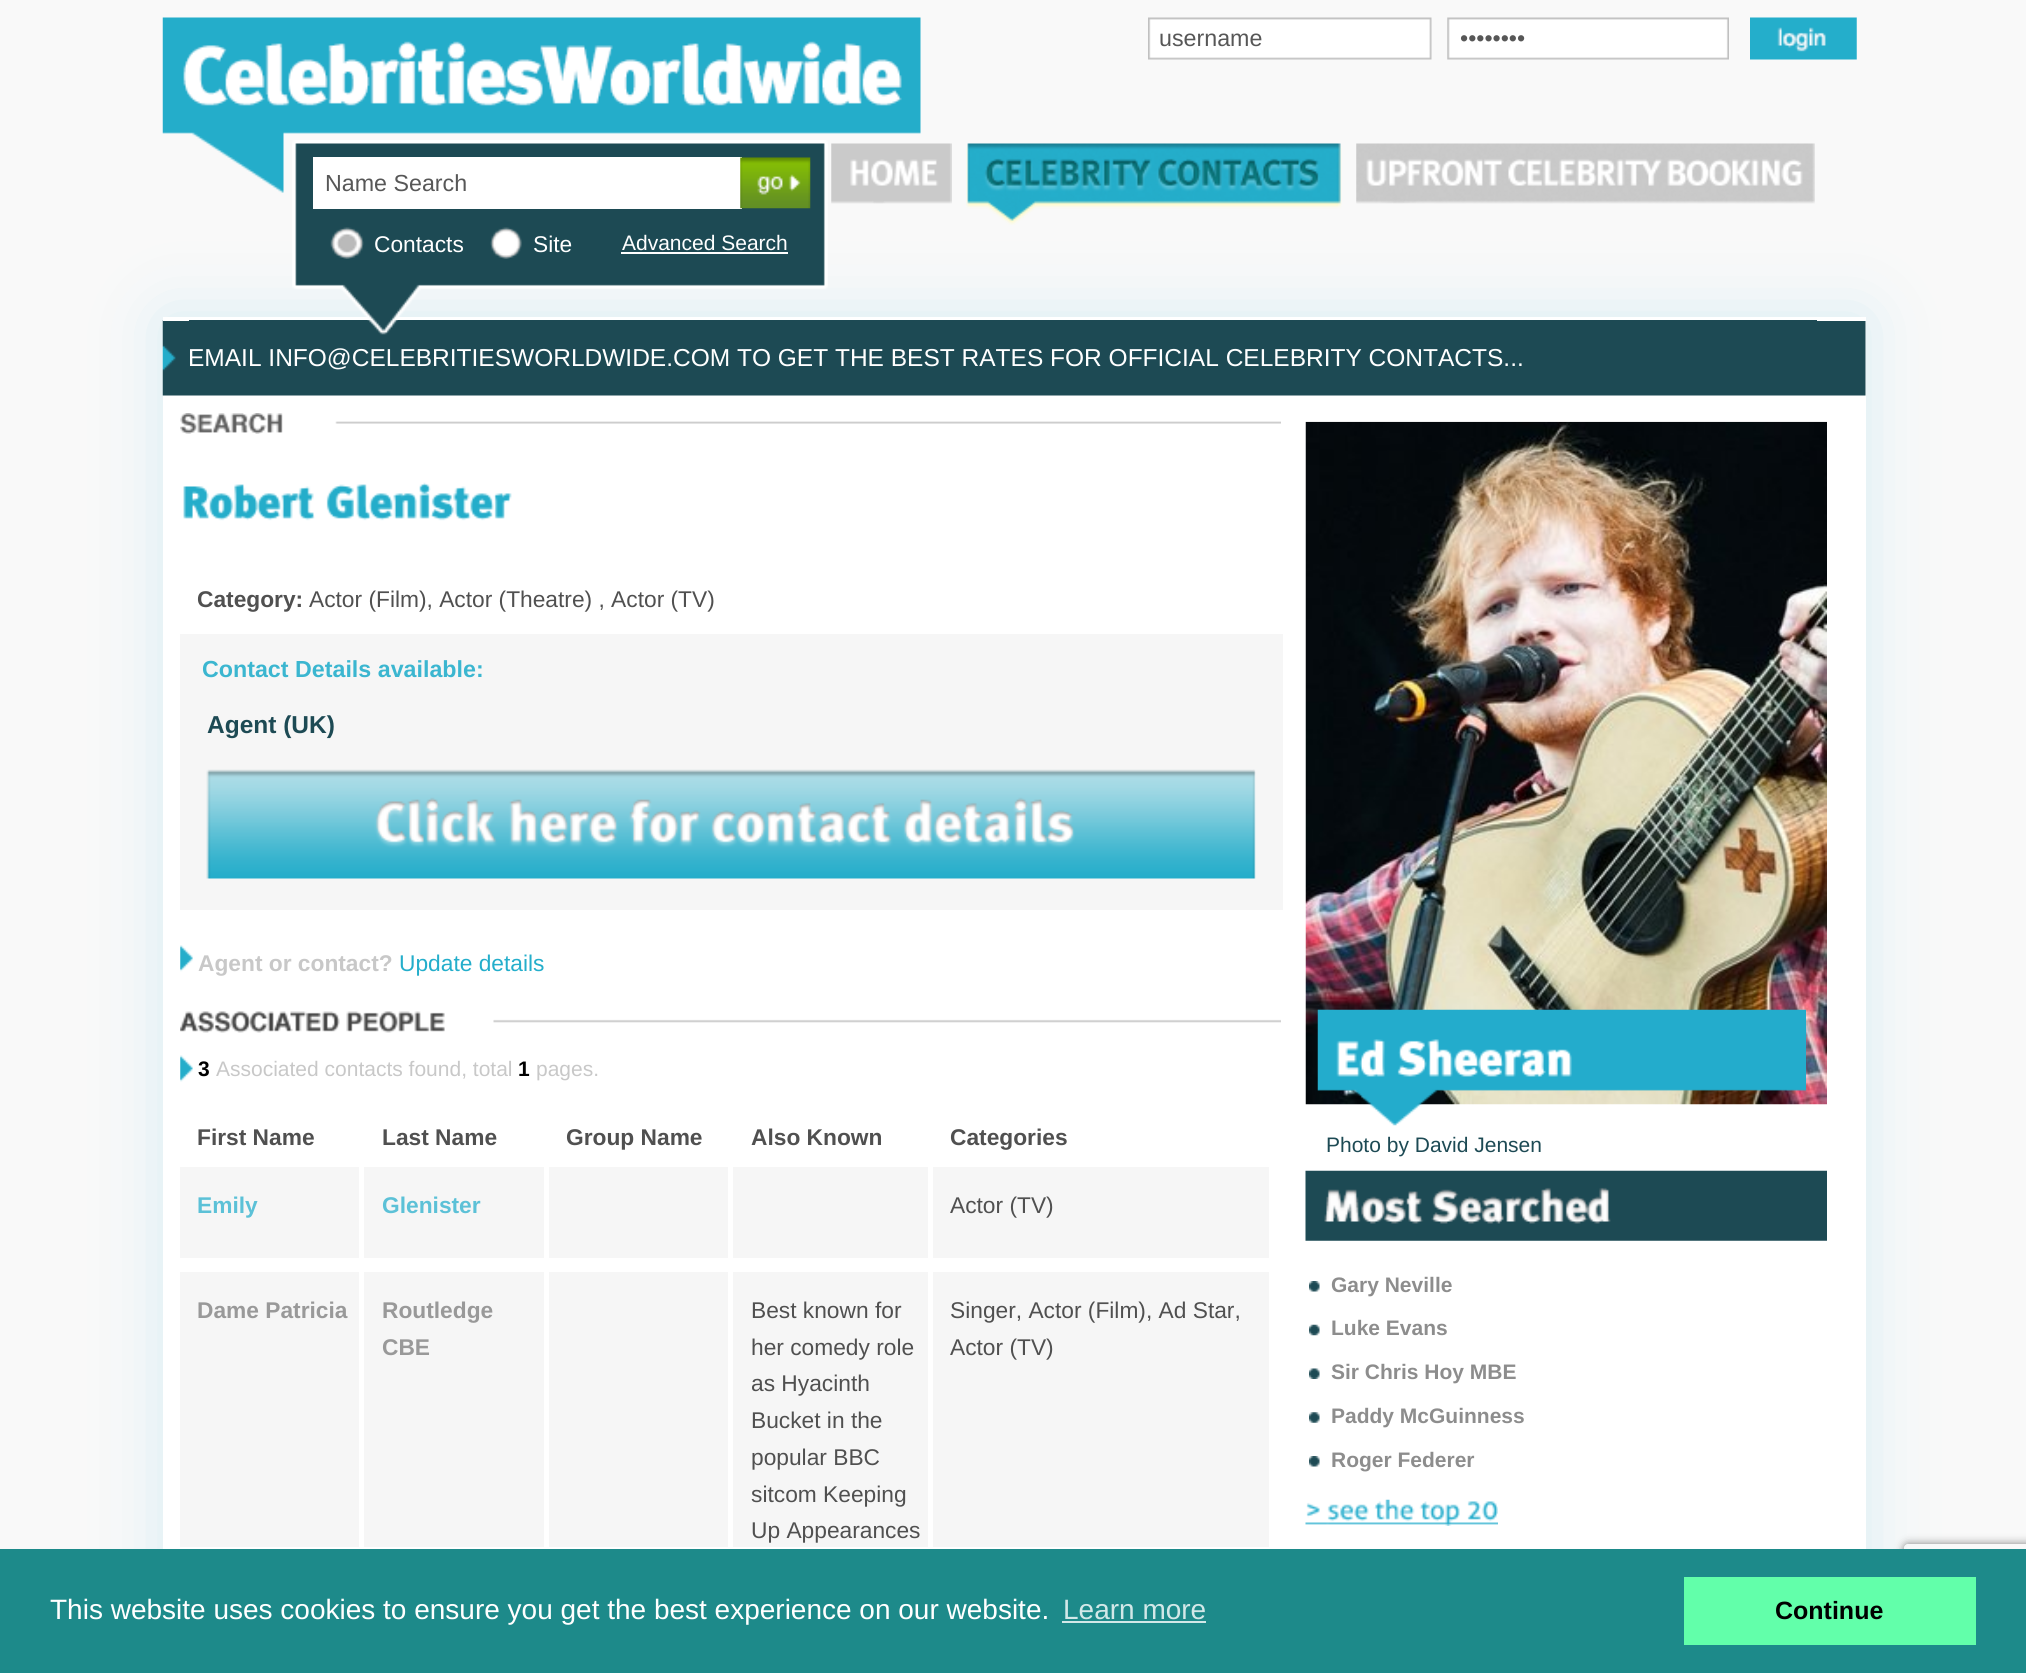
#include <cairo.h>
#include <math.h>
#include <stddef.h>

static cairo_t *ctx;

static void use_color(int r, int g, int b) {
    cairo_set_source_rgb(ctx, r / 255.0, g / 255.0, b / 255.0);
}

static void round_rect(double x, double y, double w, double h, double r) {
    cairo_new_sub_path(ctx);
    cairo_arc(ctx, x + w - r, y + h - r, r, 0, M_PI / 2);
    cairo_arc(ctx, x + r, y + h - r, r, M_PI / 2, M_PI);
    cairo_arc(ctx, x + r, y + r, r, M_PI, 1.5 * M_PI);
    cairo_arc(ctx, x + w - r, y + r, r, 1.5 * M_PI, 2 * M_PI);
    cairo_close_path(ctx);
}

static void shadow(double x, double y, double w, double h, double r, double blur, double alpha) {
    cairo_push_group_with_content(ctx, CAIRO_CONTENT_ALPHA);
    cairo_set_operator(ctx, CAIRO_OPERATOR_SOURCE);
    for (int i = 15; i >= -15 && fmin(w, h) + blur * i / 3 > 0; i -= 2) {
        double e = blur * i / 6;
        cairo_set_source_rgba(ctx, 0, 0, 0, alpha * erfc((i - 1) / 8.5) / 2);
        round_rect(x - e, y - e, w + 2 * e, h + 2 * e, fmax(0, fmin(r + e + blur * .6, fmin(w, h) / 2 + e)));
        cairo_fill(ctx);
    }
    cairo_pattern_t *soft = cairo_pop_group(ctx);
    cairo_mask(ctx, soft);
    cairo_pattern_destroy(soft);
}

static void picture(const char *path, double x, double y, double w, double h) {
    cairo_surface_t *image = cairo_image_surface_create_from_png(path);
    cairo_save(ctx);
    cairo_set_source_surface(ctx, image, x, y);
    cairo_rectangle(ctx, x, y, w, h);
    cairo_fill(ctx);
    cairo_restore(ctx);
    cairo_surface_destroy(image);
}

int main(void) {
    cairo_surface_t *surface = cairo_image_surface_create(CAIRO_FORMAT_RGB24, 2026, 1673);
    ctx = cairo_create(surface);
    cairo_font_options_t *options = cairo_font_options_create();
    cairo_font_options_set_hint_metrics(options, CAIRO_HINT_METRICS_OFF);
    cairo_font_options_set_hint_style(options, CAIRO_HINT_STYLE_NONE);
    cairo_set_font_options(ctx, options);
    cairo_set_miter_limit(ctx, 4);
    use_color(249, 249, 249);
    cairo_paint(ctx);
    picture("img1.png", 162, 17, 759, 176);
    picture("img2.png", 1148, 17, 284, 43);
    cairo_select_font_face(ctx, "Liberation Sans", CAIRO_FONT_SLANT_NORMAL, CAIRO_FONT_WEIGHT_NORMAL);
    cairo_set_font_size(ctx, 23.25);
    use_color(87, 87, 87);
    cairo_move_to(ctx, 1159, 46);
    cairo_show_text(ctx, "username");
    picture("img3.png", 1447, 17, 282, 43);
    cairo_move_to(ctx, 1460, 46);
    cairo_show_text(ctx, "••••••••");
    picture("img4.png", 1750, 17, 107, 43);
    use_color(215, 237, 243);
    shadow(163, 317, 1703, 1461, 0, 35, 1);
    use_color(255, 255, 255);
    cairo_rectangle(ctx, 163, 321, 1703, 1228);
    cairo_fill(ctx);
    picture("img12.png", 162, 320, 1704, 76);
    cairo_rectangle(ctx, 163, 317, 1703, 4);
    cairo_fill(ctx);
    use_color(29, 74, 84);
    cairo_rectangle(ctx, 189, 320, 1628, 1);
    cairo_fill(ctx);
    picture("img5.png", 292, 140, 536, 195);
    use_color(255, 255, 255);
    cairo_rectangle(ctx, 313, 157, 429, 52);
    cairo_fill(ctx);
    use_color(87, 87, 87);
    cairo_move_to(ctx, 325, 191);
    cairo_show_text(ctx, "Name Search");
    picture("img6.png", 740, 157, 71, 52);
    picture("img7.png", 330, 227, 34, 32);
    cairo_set_font_size(ctx, 22.75);
    use_color(255, 255, 255);
    cairo_move_to(ctx, 374, 252);
    cairo_show_text(ctx, "Contacts");
    picture("img8.png", 490, 227, 32, 32);
    cairo_move_to(ctx, 533, 252);
    cairo_show_text(ctx, "Site");
    cairo_set_font_size(ctx, 21);
    cairo_move_to(ctx, 622, 250);
    cairo_show_text(ctx, "Advanced Search");
    cairo_rectangle(ctx, 621, 252, 167, 2);
    cairo_fill(ctx);
    picture("img9.png", 831, 143, 121, 61);
    picture("img10.png", 966, 143, 376, 82);
    picture("img11.png", 1356, 143, 459, 61);
    cairo_set_font_size(ctx, 24.5);
    cairo_move_to(ctx, 188, 366);
    cairo_show_text(ctx, "EMAIL INFO@CELEBRITIESWORLDWIDE.COM TO GET THE BEST RATES FOR OFFICIAL CELEBRITY CONTACTS...");
    picture("img13.png", 180, 413, 1101, 21);
    picture("img14.png", 183, 484, 132, 37);
    picture("img15.png", 326, 482, 186, 39);
    cairo_select_font_face(ctx, "Liberation Sans", CAIRO_FONT_SLANT_NORMAL, CAIRO_FONT_WEIGHT_BOLD);
    cairo_set_font_size(ctx, 22.75);
    use_color(80, 80, 80);
    cairo_move_to(ctx, 197, 607);
    cairo_show_text(ctx, "Category:");
    cairo_select_font_face(ctx, "Liberation Sans", CAIRO_FONT_SLANT_NORMAL, CAIRO_FONT_WEIGHT_NORMAL);
    cairo_move_to(ctx, 309, 607);
    cairo_show_text(ctx, "Actor (Film), Actor (Theatre) , Actor (TV)");
    use_color(246, 246, 246);
    cairo_rectangle(ctx, 180, 634, 1103, 276);
    cairo_fill(ctx);
    cairo_select_font_face(ctx, "Liberation Sans", CAIRO_FONT_SLANT_NORMAL, CAIRO_FONT_WEIGHT_BOLD);
    cairo_set_font_size(ctx, 23.25);
    use_color(59, 182, 208);
    cairo_move_to(ctx, 202, 677);
    cairo_show_text(ctx, "Contact Details available:");
    cairo_set_font_size(ctx, 24.5);
    use_color(29, 74, 84);
    cairo_move_to(ctx, 207, 733);
    cairo_show_text(ctx, "Agent (UK)");
    picture("img16.png", 206, 769, 1050, 110);
    picture("img17.png", 180, 945, 13, 27);
    cairo_set_font_size(ctx, 22.75);
    use_color(200, 200, 200);
    cairo_move_to(ctx, 198, 971);
    cairo_show_text(ctx, "Agent or contact?");
    cairo_select_font_face(ctx, "Liberation Sans", CAIRO_FONT_SLANT_NORMAL, CAIRO_FONT_WEIGHT_NORMAL);
    use_color(36, 174, 203);
    cairo_move_to(ctx, 399, 971);
    cairo_show_text(ctx, "Update details");
    picture("img18.png", 180, 1011, 1101, 22);
    picture("img19.png", 180, 1055, 13, 27);
    cairo_select_font_face(ctx, "Liberation Sans", CAIRO_FONT_SLANT_NORMAL, CAIRO_FONT_WEIGHT_BOLD);
    cairo_set_font_size(ctx, 21);
    use_color(0, 0, 0);
    cairo_move_to(ctx, 198, 1076);
    cairo_show_text(ctx, "3");
    cairo_select_font_face(ctx, "Liberation Sans", CAIRO_FONT_SLANT_NORMAL, CAIRO_FONT_WEIGHT_NORMAL);
    use_color(200, 200, 200);
    cairo_move_to(ctx, 216, 1076);
    cairo_show_text(ctx, "Associated contacts found, total");
    cairo_select_font_face(ctx, "Liberation Sans", CAIRO_FONT_SLANT_NORMAL, CAIRO_FONT_WEIGHT_BOLD);
    use_color(0, 0, 0);
    cairo_move_to(ctx, 518, 1076);
    cairo_show_text(ctx, "1");
    cairo_select_font_face(ctx, "Liberation Sans", CAIRO_FONT_SLANT_NORMAL, CAIRO_FONT_WEIGHT_NORMAL);
    use_color(200, 200, 200);
    cairo_move_to(ctx, 536, 1076);
    cairo_show_text(ctx, "pages.");
    cairo_select_font_face(ctx, "Liberation Sans", CAIRO_FONT_SLANT_NORMAL, CAIRO_FONT_WEIGHT_BOLD);
    cairo_set_font_size(ctx, 22.75);
    use_color(80, 80, 80);
    cairo_move_to(ctx, 197, 1145);
    cairo_show_text(ctx, "First Name");
    cairo_move_to(ctx, 382, 1145);
    cairo_show_text(ctx, "Last Name");
    cairo_move_to(ctx, 566, 1145);
    cairo_show_text(ctx, "Group Name");
    cairo_move_to(ctx, 751, 1145);
    cairo_show_text(ctx, "Also Known");
    cairo_move_to(ctx, 950, 1145);
    cairo_show_text(ctx, "Categories");
    use_color(246, 246, 246);
    cairo_rectangle(ctx, 180, 1167, 1089, 91);
    cairo_fill(ctx);
    use_color(255, 255, 255);
    cairo_rectangle(ctx, 359, 1167, 5, 91);
    cairo_fill(ctx);
    use_color(92, 193, 215);
    cairo_move_to(ctx, 197, 1213);
    cairo_show_text(ctx, "Emily");
    use_color(255, 255, 255);
    cairo_rectangle(ctx, 544, 1167, 5, 91);
    cairo_fill(ctx);
    use_color(92, 193, 215);
    cairo_move_to(ctx, 382, 1213);
    cairo_show_text(ctx, "Glenister");
    use_color(255, 255, 255);
    cairo_rectangle(ctx, 728, 1167, 5, 91);
    cairo_fill(ctx);
    cairo_rectangle(ctx, 928, 1167, 5, 91);
    cairo_fill(ctx);
    cairo_select_font_face(ctx, "Liberation Sans", CAIRO_FONT_SLANT_NORMAL, CAIRO_FONT_WEIGHT_NORMAL);
    use_color(80, 80, 80);
    cairo_move_to(ctx, 950, 1213);
    cairo_show_text(ctx, "Actor (TV)");
    use_color(246, 246, 246);
    cairo_rectangle(ctx, 180, 1272, 1089, 275);
    cairo_fill(ctx);
    use_color(255, 255, 255);
    cairo_rectangle(ctx, 359, 1272, 5, 275);
    cairo_fill(ctx);
    cairo_select_font_face(ctx, "Liberation Sans", CAIRO_FONT_SLANT_NORMAL, CAIRO_FONT_WEIGHT_BOLD);
    use_color(153, 153, 153);
    cairo_move_to(ctx, 197, 1318);
    cairo_show_text(ctx, "Dame Patricia");
    use_color(255, 255, 255);
    cairo_rectangle(ctx, 544, 1272, 5, 275);
    cairo_fill(ctx);
    use_color(153, 153, 153);
    cairo_move_to(ctx, 382, 1318);
    cairo_show_text(ctx, "Routledge");
    cairo_move_to(ctx, 382, 1355);
    cairo_show_text(ctx, "CBE");
    use_color(255, 255, 255);
    cairo_rectangle(ctx, 728, 1272, 5, 275);
    cairo_fill(ctx);
    cairo_rectangle(ctx, 928, 1272, 5, 275);
    cairo_fill(ctx);
    cairo_select_font_face(ctx, "Liberation Sans", CAIRO_FONT_SLANT_NORMAL, CAIRO_FONT_WEIGHT_NORMAL);
    use_color(80, 80, 80);
    cairo_move_to(ctx, 751, 1318);
    cairo_show_text(ctx, "Best known for");
    cairo_move_to(ctx, 751, 1355);
    cairo_show_text(ctx, "her comedy role");
    cairo_move_to(ctx, 751, 1391);
    cairo_show_text(ctx, "as Hyacinth");
    cairo_move_to(ctx, 751, 1428);
    cairo_show_text(ctx, "Bucket in the");
    cairo_move_to(ctx, 751, 1465);
    cairo_show_text(ctx, "popular BBC");
    cairo_move_to(ctx, 751, 1502);
    cairo_show_text(ctx, "sitcom Keeping");
    cairo_move_to(ctx, 751, 1538);
    cairo_show_text(ctx, "Up Appearances");
    cairo_move_to(ctx, 950, 1318);
    cairo_show_text(ctx, "Singer, Actor (Film), Ad Star,");
    cairo_move_to(ctx, 950, 1355);
    cairo_show_text(ctx, "Actor (TV)");
    picture("img20.png", 1305, 421, 522, 684);
    picture("img21.png", 1317, 1009, 489, 117);
    picture("img22.png", 1336, 1039, 49, 38);
    picture("img23.png", 1397, 1039, 175, 38);
    cairo_set_font_size(ctx, 21);
    use_color(29, 74, 84);
    cairo_move_to(ctx, 1326, 1152);
    cairo_show_text(ctx, "Photo by David Jensen");
    picture("img24.png", 1305, 1170, 522, 71);
    picture("img25.png", 1309, 1281, 11, 11);
    cairo_select_font_face(ctx, "Liberation Sans", CAIRO_FONT_SLANT_NORMAL, CAIRO_FONT_WEIGHT_BOLD);
    use_color(141, 141, 141);
    cairo_move_to(ctx, 1331, 1292);
    cairo_show_text(ctx, "Gary Neville");
    picture("img26.png", 1309, 1324, 11, 12);
    cairo_move_to(ctx, 1331, 1335);
    cairo_show_text(ctx, "Luke Evans");
    picture("img27.png", 1309, 1368, 11, 11);
    cairo_move_to(ctx, 1331, 1379);
    cairo_show_text(ctx, "Sir Chris Hoy MBE");
    picture("img28.png", 1309, 1412, 11, 11);
    cairo_move_to(ctx, 1331, 1423);
    cairo_show_text(ctx, "Paddy McGuinness");
    picture("img25.png", 1309, 1456, 11, 11);
    cairo_move_to(ctx, 1331, 1467);
    cairo_show_text(ctx, "Roger Federer");
    picture("img29.png", 1305, 1499, 193, 27);
    cairo_save(ctx);
    cairo_set_fill_rule(ctx, CAIRO_FILL_RULE_EVEN_ODD);
    cairo_new_path(ctx);
    cairo_move_to(ctx, 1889, 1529);
    cairo_line_to(ctx, 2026, 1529);
    cairo_line_to(ctx, 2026, 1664);
    cairo_line_to(ctx, 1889, 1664);
    cairo_close_path(ctx);
    cairo_move_to(ctx, 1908, 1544);
    cairo_line_to(ctx, 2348, 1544);
    cairo_curve_to(ctx, 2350, 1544, 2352, 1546, 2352, 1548);
    cairo_line_to(ctx, 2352, 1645);
    cairo_curve_to(ctx, 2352, 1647, 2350, 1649, 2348, 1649);
    cairo_line_to(ctx, 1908, 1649);
    cairo_curve_to(ctx, 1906, 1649, 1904, 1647, 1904, 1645);
    cairo_line_to(ctx, 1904, 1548);
    cairo_curve_to(ctx, 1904, 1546, 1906, 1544, 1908, 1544);
    cairo_close_path(ctx);
    cairo_clip(ctx);
    use_color(128, 128, 128);
    shadow(1904, 1544, 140, 105, 4, 4.5, 1);
    cairo_restore(ctx);
    use_color(29, 138, 138);
    cairo_rectangle(ctx, 0, 1549, 2026, 124);
    cairo_fill(ctx);
    cairo_select_font_face(ctx, "Liberation Sans", CAIRO_FONT_SLANT_NORMAL, CAIRO_FONT_WEIGHT_NORMAL);
    cairo_set_font_size(ctx, 28);
    use_color(255, 255, 255);
    cairo_move_to(ctx, 50, 1619);
    cairo_show_text(ctx, "This website uses cookies to ensure you get the best experience on our website.");
    use_color(210, 232, 232);
    cairo_move_to(ctx, 1063, 1619);
    cairo_show_text(ctx, "Learn more");
    cairo_rectangle(ctx, 1062, 1621, 144, 2);
    cairo_fill(ctx);
    use_color(98, 255, 170);
    cairo_rectangle(ctx, 1684, 1577, 292, 68);
    cairo_fill(ctx);
    cairo_select_font_face(ctx, "Liberation Sans", CAIRO_FONT_SLANT_NORMAL, CAIRO_FONT_WEIGHT_BOLD);
    cairo_set_font_size(ctx, 25);
    use_color(0, 0, 0);
    cairo_move_to(ctx, 1775, 1619);
    cairo_show_text(ctx, "Continue");
    cairo_surface_write_to_png(surface, "result.png");
    cairo_font_options_destroy(options);
    cairo_destroy(ctx);
    cairo_surface_destroy(surface);
    return 0;
}
